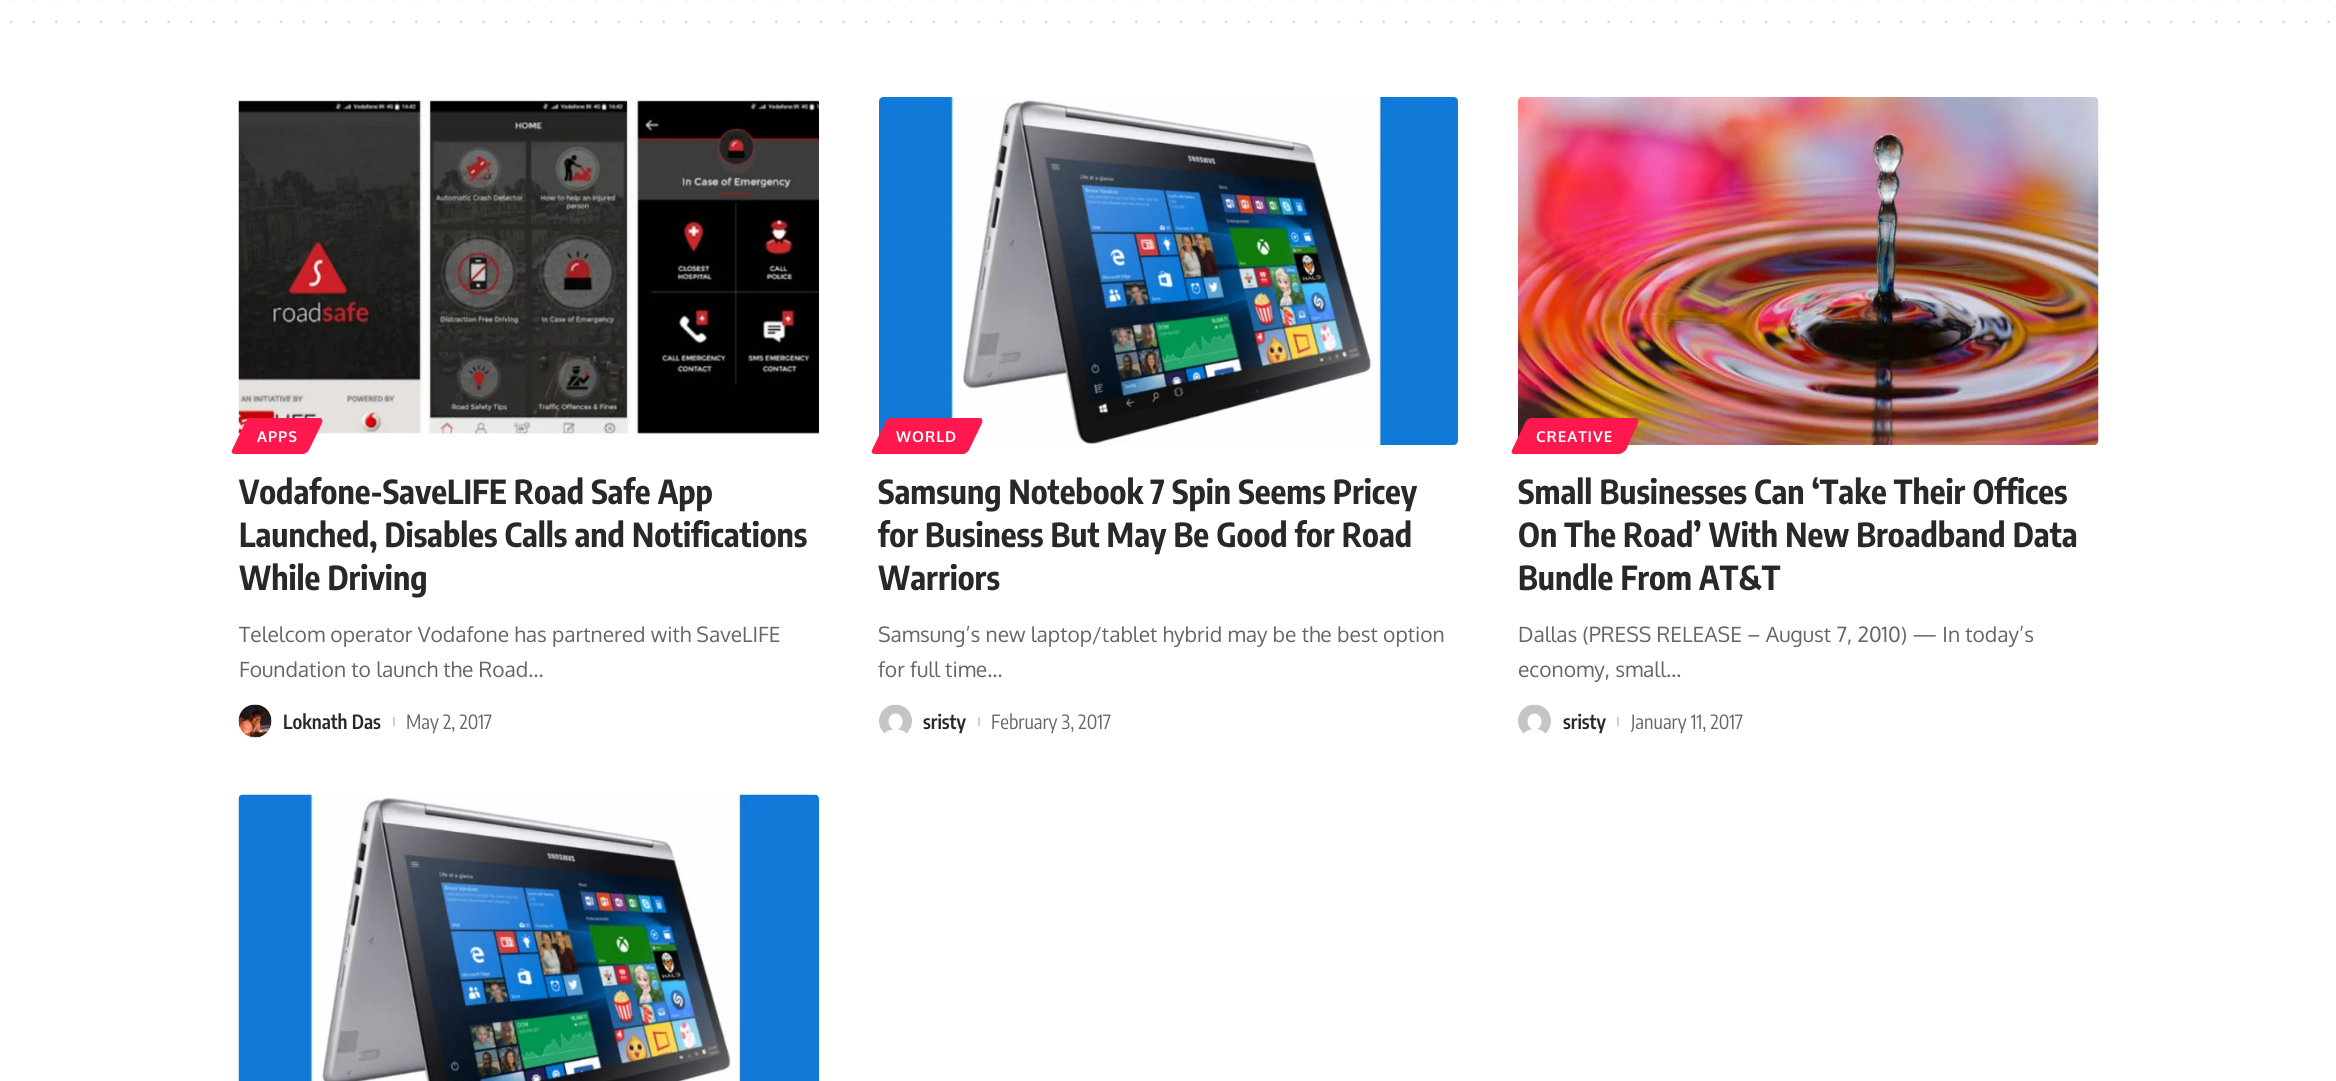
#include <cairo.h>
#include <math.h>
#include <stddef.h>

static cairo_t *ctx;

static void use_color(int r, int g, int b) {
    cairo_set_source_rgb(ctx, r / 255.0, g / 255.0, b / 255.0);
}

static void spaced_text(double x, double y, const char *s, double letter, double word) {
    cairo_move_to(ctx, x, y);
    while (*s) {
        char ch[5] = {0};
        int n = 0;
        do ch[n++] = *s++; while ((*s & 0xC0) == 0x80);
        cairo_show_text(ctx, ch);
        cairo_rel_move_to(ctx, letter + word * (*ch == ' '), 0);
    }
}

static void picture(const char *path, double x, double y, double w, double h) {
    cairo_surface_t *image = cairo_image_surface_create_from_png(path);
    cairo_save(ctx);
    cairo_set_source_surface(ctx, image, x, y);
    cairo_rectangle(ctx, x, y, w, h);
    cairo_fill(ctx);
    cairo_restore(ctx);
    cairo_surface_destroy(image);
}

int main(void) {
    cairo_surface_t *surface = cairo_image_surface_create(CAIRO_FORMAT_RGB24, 2336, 1081);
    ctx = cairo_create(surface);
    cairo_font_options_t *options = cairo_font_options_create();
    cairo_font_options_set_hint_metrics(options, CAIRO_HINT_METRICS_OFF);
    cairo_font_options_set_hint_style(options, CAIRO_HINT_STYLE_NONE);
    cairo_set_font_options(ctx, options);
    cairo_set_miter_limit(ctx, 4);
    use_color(255, 255, 255);
    cairo_paint(ctx);
    cairo_new_path(ctx);
    cairo_move_to(ctx, 11.2, -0.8);
    cairo_line_to(ctx, 2329.1, -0.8);
    use_color(223, 223, 223);
    cairo_set_line_width(ctx, 3);
    cairo_set_line_cap(ctx, CAIRO_LINE_CAP_ROUND);
    cairo_set_dash(ctx, (double[]){0, 22.5}, 2, 0);
    cairo_stroke(ctx);
    cairo_new_path(ctx);
    cairo_move_to(ctx, 11.2, 21.8);
    cairo_line_to(ctx, 2329.1, 21.8);
    cairo_stroke(ctx);
    picture("img1.png", 238, 97, 581, 342);
    use_color(255, 24, 78);
    cairo_new_path(ctx);
    cairo_move_to(ctx, 251, 418);
    cairo_line_to(ctx, 320, 418);
    cairo_curve_to(ctx, 322, 418, 323, 420, 322, 423);
    cairo_line_to(ctx, 309, 450);
    cairo_curve_to(ctx, 308, 452, 305, 454, 303, 454);
    cairo_line_to(ctx, 235, 454);
    cairo_curve_to(ctx, 232, 454, 231, 452, 232, 450);
    cairo_line_to(ctx, 245, 423);
    cairo_curve_to(ctx, 246, 420, 249, 418, 251, 418);
    cairo_close_path(ctx);
    cairo_fill(ctx);
    cairo_select_font_face(ctx, "Oxygen", CAIRO_FONT_SLANT_NORMAL, CAIRO_FONT_WEIGHT_BOLD);
    cairo_set_font_size(ctx, 15);
    use_color(255, 255, 255);
    spaced_text(257, 442, "APPS", 1, 0);
    cairo_select_font_face(ctx, "Encode Sans Condensed", CAIRO_FONT_SLANT_NORMAL, CAIRO_FONT_WEIGHT_BOLD);
    cairo_set_font_size(ctx, 33);
    use_color(40, 40, 40);
    cairo_move_to(ctx, 239, 504);
    cairo_show_text(ctx, "Vodafone-SaveLIFE Road Safe App");
    cairo_move_to(ctx, 239, 547);
    cairo_show_text(ctx, "Launched, Disables Calls and Notifications");
    cairo_move_to(ctx, 239, 590);
    cairo_show_text(ctx, "While Driving");
    cairo_select_font_face(ctx, "Oxygen", CAIRO_FONT_SLANT_NORMAL, CAIRO_FONT_WEIGHT_NORMAL);
    cairo_set_font_size(ctx, 21);
    use_color(102, 102, 102);
    cairo_move_to(ctx, 239, 642);
    cairo_show_text(ctx, "Telelcom operator Vodafone has partnered with SaveLIFE");
    cairo_move_to(ctx, 239, 677);
    cairo_show_text(ctx, "Foundation to launch the Road…");
    picture("img2.png", 238, 704, 34, 34);
    cairo_select_font_face(ctx, "Encode Sans Condensed SemiBold", CAIRO_FONT_SLANT_NORMAL, CAIRO_FONT_WEIGHT_NORMAL);
    cairo_set_font_size(ctx, 19.5);
    use_color(40, 40, 40);
    cairo_move_to(ctx, 283, 729);
    cairo_show_text(ctx, "Loknath Das");
    use_color(209, 209, 209);
    cairo_rectangle(ctx, 393, 717, 2, 9);
    cairo_fill(ctx);
    cairo_select_font_face(ctx, "Encode Sans Condensed", CAIRO_FONT_SLANT_NORMAL, CAIRO_FONT_WEIGHT_NORMAL);
    use_color(102, 102, 102);
    cairo_move_to(ctx, 406, 729);
    cairo_show_text(ctx, "May 2, 2017");
    picture("img3.png", 879, 97, 579, 348);
    use_color(255, 24, 78);
    cairo_new_path(ctx);
    cairo_move_to(ctx, 891, 418);
    cairo_line_to(ctx, 980, 418);
    cairo_curve_to(ctx, 982, 418, 983, 420, 982, 423);
    cairo_line_to(ctx, 969, 450);
    cairo_curve_to(ctx, 968, 452, 965, 454, 963, 454);
    cairo_line_to(ctx, 875, 454);
    cairo_curve_to(ctx, 872, 454, 871, 452, 872, 450);
    cairo_line_to(ctx, 885, 423);
    cairo_curve_to(ctx, 886, 420, 889, 418, 891, 418);
    cairo_close_path(ctx);
    cairo_fill(ctx);
    cairo_select_font_face(ctx, "Oxygen", CAIRO_FONT_SLANT_NORMAL, CAIRO_FONT_WEIGHT_BOLD);
    cairo_set_font_size(ctx, 15);
    use_color(255, 255, 255);
    spaced_text(896, 442, "WORLD", 1, 0);
    cairo_select_font_face(ctx, "Encode Sans Condensed", CAIRO_FONT_SLANT_NORMAL, CAIRO_FONT_WEIGHT_BOLD);
    cairo_set_font_size(ctx, 33);
    use_color(40, 40, 40);
    cairo_move_to(ctx, 878, 504);
    cairo_show_text(ctx, "Samsung Notebook 7 Spin Seems Pricey");
    cairo_move_to(ctx, 878, 547);
    cairo_show_text(ctx, "for Business But May Be Good for Road");
    cairo_move_to(ctx, 878, 590);
    cairo_show_text(ctx, "Warriors");
    cairo_select_font_face(ctx, "Oxygen", CAIRO_FONT_SLANT_NORMAL, CAIRO_FONT_WEIGHT_NORMAL);
    cairo_set_font_size(ctx, 21);
    use_color(102, 102, 102);
    cairo_move_to(ctx, 878, 642);
    cairo_show_text(ctx, "Samsung’s new laptop/tablet hybrid may be the best option");
    cairo_move_to(ctx, 878, 677);
    cairo_show_text(ctx, "for full time…");
    picture("img4.png", 879, 704, 33, 30);
    cairo_select_font_face(ctx, "Encode Sans Condensed SemiBold", CAIRO_FONT_SLANT_NORMAL, CAIRO_FONT_WEIGHT_NORMAL);
    cairo_set_font_size(ctx, 19.5);
    use_color(40, 40, 40);
    cairo_move_to(ctx, 923, 729);
    cairo_show_text(ctx, "sristy");
    use_color(209, 209, 209);
    cairo_rectangle(ctx, 978, 717, 2, 9);
    cairo_fill(ctx);
    cairo_select_font_face(ctx, "Encode Sans Condensed", CAIRO_FONT_SLANT_NORMAL, CAIRO_FONT_WEIGHT_NORMAL);
    use_color(102, 102, 102);
    cairo_move_to(ctx, 991, 729);
    cairo_show_text(ctx, "February 3, 2017");
    picture("img5.png", 1518, 97, 581, 348);
    use_color(255, 24, 78);
    cairo_new_path(ctx);
    cairo_move_to(ctx, 1531, 418);
    cairo_line_to(ctx, 1636, 418);
    cairo_curve_to(ctx, 1638, 418, 1639, 420, 1638, 423);
    cairo_line_to(ctx, 1626, 450);
    cairo_curve_to(ctx, 1624, 452, 1621, 454, 1619, 454);
    cairo_line_to(ctx, 1514, 454);
    cairo_curve_to(ctx, 1512, 454, 1511, 452, 1512, 450);
    cairo_line_to(ctx, 1525, 423);
    cairo_curve_to(ctx, 1526, 420, 1529, 418, 1531, 418);
    cairo_close_path(ctx);
    cairo_fill(ctx);
    cairo_select_font_face(ctx, "Oxygen", CAIRO_FONT_SLANT_NORMAL, CAIRO_FONT_WEIGHT_BOLD);
    cairo_set_font_size(ctx, 15);
    use_color(255, 255, 255);
    spaced_text(1536, 442, "CREATIVE", 1, 0);
    cairo_select_font_face(ctx, "Encode Sans Condensed", CAIRO_FONT_SLANT_NORMAL, CAIRO_FONT_WEIGHT_BOLD);
    cairo_set_font_size(ctx, 33);
    use_color(40, 40, 40);
    cairo_move_to(ctx, 1518, 504);
    cairo_show_text(ctx, "Small Businesses Can ‘Take Their Offices");
    cairo_move_to(ctx, 1518, 547);
    cairo_show_text(ctx, "On The Road’ With New Broadband Data");
    cairo_move_to(ctx, 1518, 590);
    cairo_show_text(ctx, "Bundle From AT&T");
    cairo_select_font_face(ctx, "Oxygen", CAIRO_FONT_SLANT_NORMAL, CAIRO_FONT_WEIGHT_NORMAL);
    cairo_set_font_size(ctx, 21);
    use_color(102, 102, 102);
    cairo_move_to(ctx, 1518, 642);
    cairo_show_text(ctx, "Dallas (PRESS RELEASE – August 7, 2010) — In today’s");
    cairo_move_to(ctx, 1518, 677);
    cairo_show_text(ctx, "economy, small…");
    picture("img6.png", 1518, 704, 33, 30);
    cairo_select_font_face(ctx, "Encode Sans Condensed SemiBold", CAIRO_FONT_SLANT_NORMAL, CAIRO_FONT_WEIGHT_NORMAL);
    cairo_set_font_size(ctx, 19.5);
    use_color(40, 40, 40);
    cairo_move_to(ctx, 1563, 729);
    cairo_show_text(ctx, "sristy");
    use_color(209, 209, 209);
    cairo_rectangle(ctx, 1617, 717, 2, 9);
    cairo_fill(ctx);
    cairo_select_font_face(ctx, "Encode Sans Condensed", CAIRO_FONT_SLANT_NORMAL, CAIRO_FONT_WEIGHT_NORMAL);
    use_color(102, 102, 102);
    cairo_move_to(ctx, 1631, 729);
    cairo_show_text(ctx, "January 11, 2017");
    picture("img7.png", 238, 794, 581, 287);
    cairo_surface_write_to_png(surface, "result.png");
    cairo_font_options_destroy(options);
    cairo_destroy(ctx);
    cairo_surface_destroy(surface);
    return 0;
}
